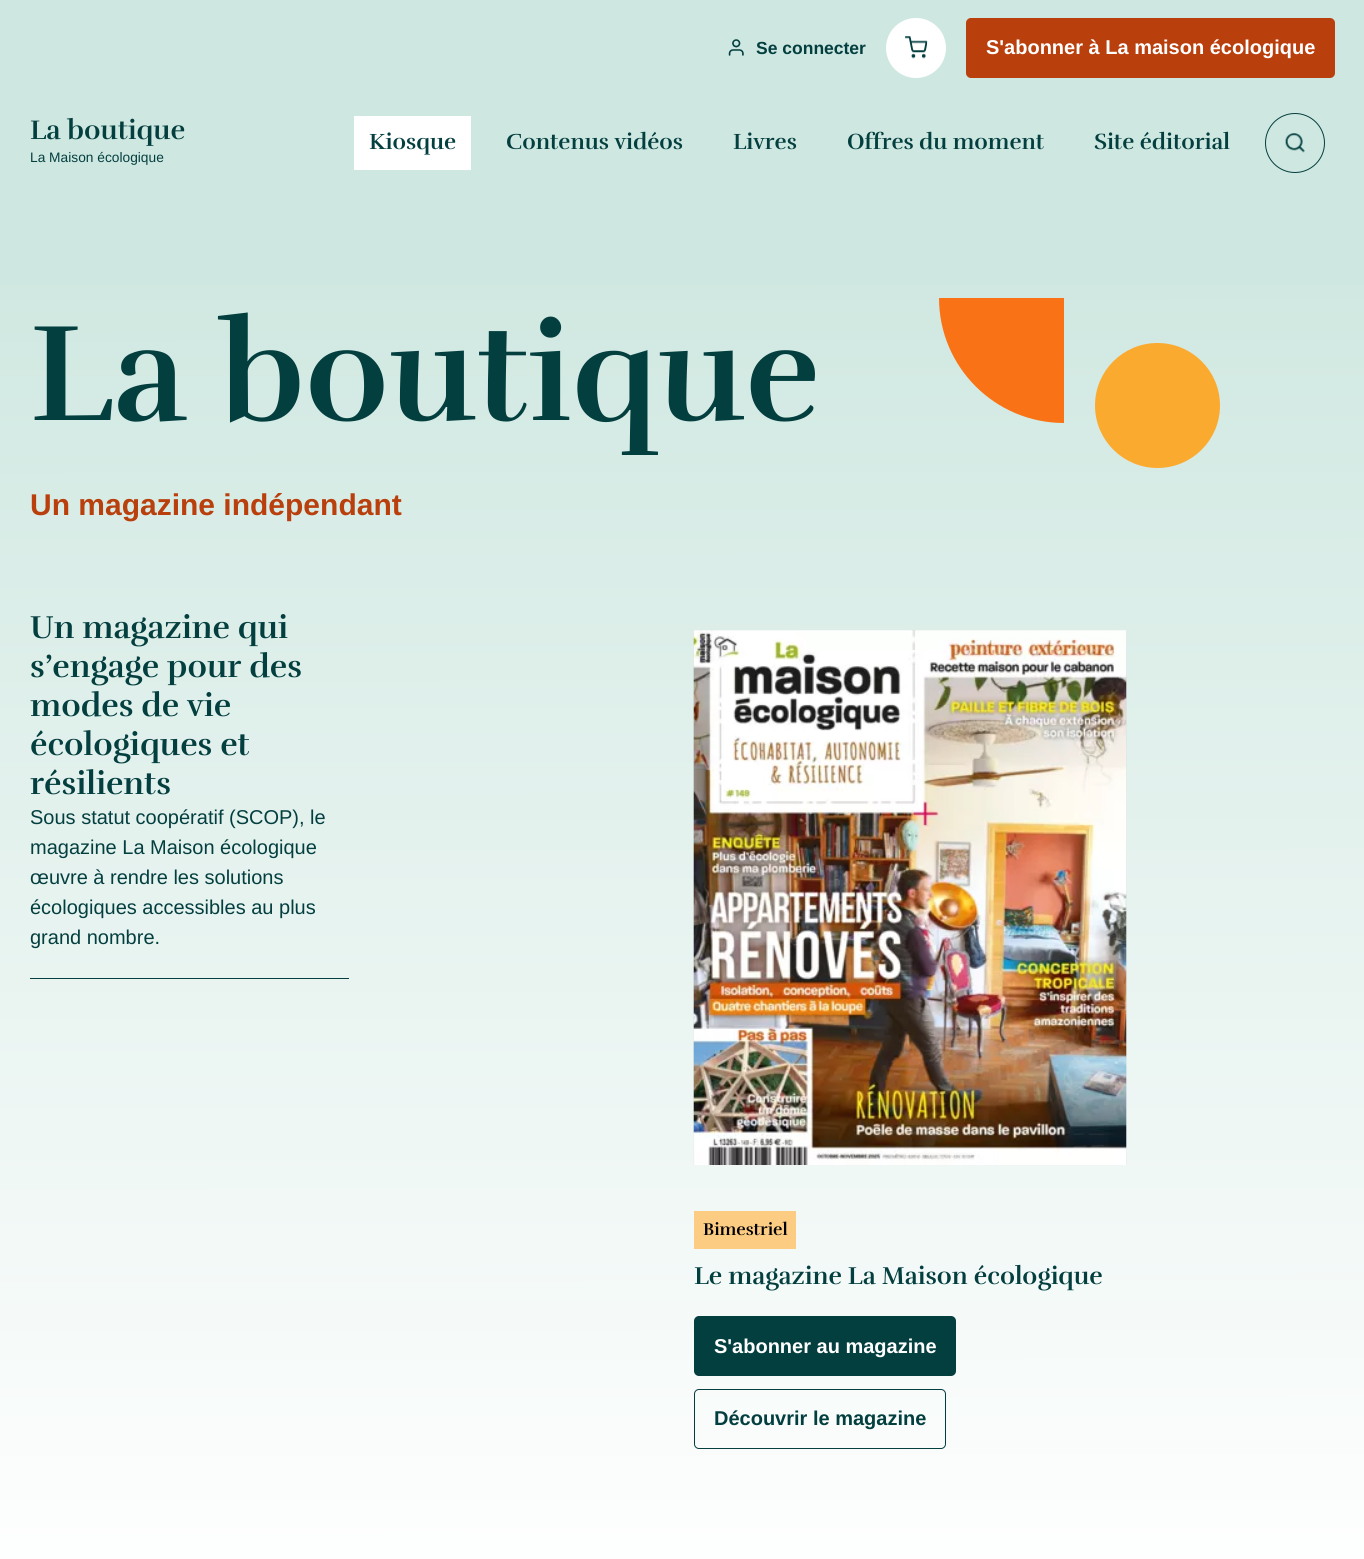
#include <cairo.h>
#include <math.h>
#include <stddef.h>

static cairo_t *ctx;

static void use_color(int r, int g, int b) {
    cairo_set_source_rgb(ctx, r / 255.0, g / 255.0, b / 255.0);
}

static void round_rect(double x, double y, double w, double h, double r) {
    cairo_new_sub_path(ctx);
    cairo_arc(ctx, x + w - r, y + h - r, r, 0, M_PI / 2);
    cairo_arc(ctx, x + r, y + h - r, r, M_PI / 2, M_PI);
    cairo_arc(ctx, x + r, y + r, r, M_PI, 1.5 * M_PI);
    cairo_arc(ctx, x + w - r, y + r, r, 1.5 * M_PI, 2 * M_PI);
    cairo_close_path(ctx);
}

static void picture(const char *path, double x, double y, double w, double h) {
    cairo_surface_t *image = cairo_image_surface_create_from_png(path);
    cairo_save(ctx);
    cairo_set_source_surface(ctx, image, x, y);
    cairo_rectangle(ctx, x, y, w, h);
    cairo_fill(ctx);
    cairo_restore(ctx);
    cairo_surface_destroy(image);
}

int main(void) {
    cairo_surface_t *surface = cairo_image_surface_create(CAIRO_FORMAT_RGB24, 1364, 1559);
    ctx = cairo_create(surface);
    cairo_font_options_t *options = cairo_font_options_create();
    cairo_font_options_set_hint_metrics(options, CAIRO_HINT_METRICS_OFF);
    cairo_font_options_set_hint_style(options, CAIRO_HINT_STYLE_NONE);
    cairo_set_font_options(ctx, options);
    cairo_set_miter_limit(ctx, 4);
    cairo_pattern_t *gradient;
    use_color(206, 231, 224);
    cairo_paint(ctx);
    picture("img1.png", 728, 39, 16, 17);
    cairo_select_font_face(ctx, "Liberation Sans", CAIRO_FONT_SLANT_NORMAL, CAIRO_FONT_WEIGHT_BOLD);
    cairo_set_font_size(ctx, 17.5);
    use_color(4, 63, 64);
    cairo_move_to(ctx, 756, 54);
    cairo_show_text(ctx, "Se connecter");
    use_color(255, 255, 255);
    cairo_new_path(ctx);
    cairo_arc(ctx, 916, 48, 30, 0, 2 * M_PI);
    cairo_fill(ctx);
    picture("img2.png", 905, 36, 23, 23);
    use_color(185, 63, 13);
    round_rect(966, 18, 369, 60, 5);
    cairo_fill(ctx);
    cairo_set_font_size(ctx, 20);
    use_color(255, 255, 255);
    cairo_move_to(ctx, 986, 54);
    cairo_show_text(ctx, "S'abonner à La maison écologique");
    cairo_select_font_face(ctx, "Rufina", CAIRO_FONT_SLANT_NORMAL, CAIRO_FONT_WEIGHT_BOLD);
    cairo_set_font_size(ctx, 27.5);
    use_color(4, 63, 64);
    cairo_move_to(ctx, 30, 139);
    cairo_show_text(ctx, "La boutique");
    cairo_select_font_face(ctx, "Liberation Sans", CAIRO_FONT_SLANT_NORMAL, CAIRO_FONT_WEIGHT_NORMAL);
    cairo_set_font_size(ctx, 13.75);
    cairo_move_to(ctx, 30, 162);
    cairo_show_text(ctx, "La Maison écologique");
    use_color(255, 255, 255);
    cairo_rectangle(ctx, 354, 116, 117, 54);
    cairo_fill(ctx);
    cairo_select_font_face(ctx, "Rufina", CAIRO_FONT_SLANT_NORMAL, CAIRO_FONT_WEIGHT_BOLD);
    cairo_set_font_size(ctx, 22.5);
    use_color(4, 63, 64);
    cairo_move_to(ctx, 369, 149);
    cairo_show_text(ctx, "Kiosque");
    cairo_move_to(ctx, 506, 149);
    cairo_show_text(ctx, "Contenus vidéos");
    cairo_move_to(ctx, 733, 149);
    cairo_show_text(ctx, "Livres");
    cairo_move_to(ctx, 847, 149);
    cairo_show_text(ctx, "Offres du moment");
    cairo_move_to(ctx, 1094, 149);
    cairo_show_text(ctx, "Site éditorial");
    cairo_new_path(ctx);
    cairo_arc(ctx, 1295, 143, 29.5, 0, 2 * M_PI);
    cairo_set_line_width(ctx, 1);
    cairo_stroke(ctx);
    picture("img3.png", 1285, 133, 20, 20);
    gradient = cairo_pattern_create_linear(682, 215, 683, 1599);
    cairo_pattern_add_color_stop_rgba(gradient, 0, 0.808, 0.906, 0.878, 1);
    cairo_pattern_add_color_stop_rgba(gradient, 1, 1, 1, 1, 1);
    cairo_set_source(ctx, gradient);
    cairo_pattern_destroy(gradient);
    cairo_rectangle(ctx, 0, 285, 1364, 1274);
    cairo_fill(ctx);
    cairo_set_font_size(ctx, 140);
    use_color(4, 63, 64);
    cairo_move_to(ctx, 30, 420);
    cairo_show_text(ctx, "La boutique");
    use_color(249, 115, 22);
    cairo_new_path(ctx);
    cairo_move_to(ctx, 939, 298);
    cairo_line_to(ctx, 1064, 298);
    cairo_line_to(ctx, 1064, 423);
    cairo_curve_to(ctx, 995, 423, 939, 367, 939, 298);
    cairo_close_path(ctx);
    cairo_fill(ctx);
    use_color(251, 170, 48);
    cairo_arc(ctx, 1157.5, 405.5, 62.5, 0, 2 * M_PI);
    cairo_fill(ctx);
    cairo_select_font_face(ctx, "Liberation Sans", CAIRO_FONT_SLANT_NORMAL, CAIRO_FONT_WEIGHT_BOLD);
    cairo_set_font_size(ctx, 30);
    use_color(185, 63, 13);
    cairo_move_to(ctx, 30, 515);
    cairo_show_text(ctx, "Un magazine indépendant");
    use_color(4, 63, 64);
    cairo_rectangle(ctx, 30, 978, 319, 1);
    cairo_fill(ctx);
    cairo_select_font_face(ctx, "Rufina", CAIRO_FONT_SLANT_NORMAL, CAIRO_FONT_WEIGHT_BOLD);
    cairo_set_font_size(ctx, 32.5);
    cairo_move_to(ctx, 30, 638);
    cairo_show_text(ctx, "Un magazine qui");
    cairo_move_to(ctx, 30, 677);
    cairo_show_text(ctx, "s’engage pour des");
    cairo_move_to(ctx, 30, 716);
    cairo_show_text(ctx, "modes de vie");
    cairo_move_to(ctx, 30, 755);
    cairo_show_text(ctx, "écologiques et");
    cairo_move_to(ctx, 30, 794);
    cairo_show_text(ctx, "résilients");
    cairo_select_font_face(ctx, "Liberation Sans", CAIRO_FONT_SLANT_NORMAL, CAIRO_FONT_WEIGHT_NORMAL);
    cairo_set_font_size(ctx, 20);
    cairo_move_to(ctx, 30, 824);
    cairo_show_text(ctx, "Sous statut coopératif (SCOP), le");
    cairo_move_to(ctx, 30, 854);
    cairo_show_text(ctx, "magazine La Maison écologique");
    cairo_move_to(ctx, 30, 884);
    cairo_show_text(ctx, "œuvre à rendre les solutions");
    cairo_move_to(ctx, 30, 914);
    cairo_show_text(ctx, "écologiques accessibles au plus");
    cairo_move_to(ctx, 30, 944);
    cairo_show_text(ctx, "grand nombre.");
    picture("img4.png", 693, 630, 434, 535);
    use_color(253, 204, 131);
    cairo_rectangle(ctx, 694, 1211, 102, 38);
    cairo_fill(ctx);
    cairo_select_font_face(ctx, "Rufina", CAIRO_FONT_SLANT_NORMAL, CAIRO_FONT_WEIGHT_BOLD);
    cairo_set_font_size(ctx, 17.5);
    use_color(0, 0, 0);
    cairo_move_to(ctx, 703, 1235);
    cairo_show_text(ctx, "Bimestriel");
    cairo_set_font_size(ctx, 25);
    use_color(4, 63, 64);
    cairo_move_to(ctx, 694, 1284);
    cairo_show_text(ctx, "Le magazine La Maison écologique");
    round_rect(694, 1316, 262, 60, 5);
    cairo_fill(ctx);
    cairo_select_font_face(ctx, "Liberation Sans", CAIRO_FONT_SLANT_NORMAL, CAIRO_FONT_WEIGHT_BOLD);
    cairo_set_font_size(ctx, 20);
    use_color(255, 255, 255);
    cairo_move_to(ctx, 714, 1353);
    cairo_show_text(ctx, "S'abonner au magazine");
    round_rect(694.5, 1389.5, 251, 59, 4.5);
    use_color(4, 63, 64);
    cairo_stroke(ctx);
    cairo_move_to(ctx, 714, 1425);
    cairo_show_text(ctx, "Découvrir le magazine");
    cairo_surface_write_to_png(surface, "result.png");
    cairo_font_options_destroy(options);
    cairo_destroy(ctx);
    cairo_surface_destroy(surface);
    return 0;
}
